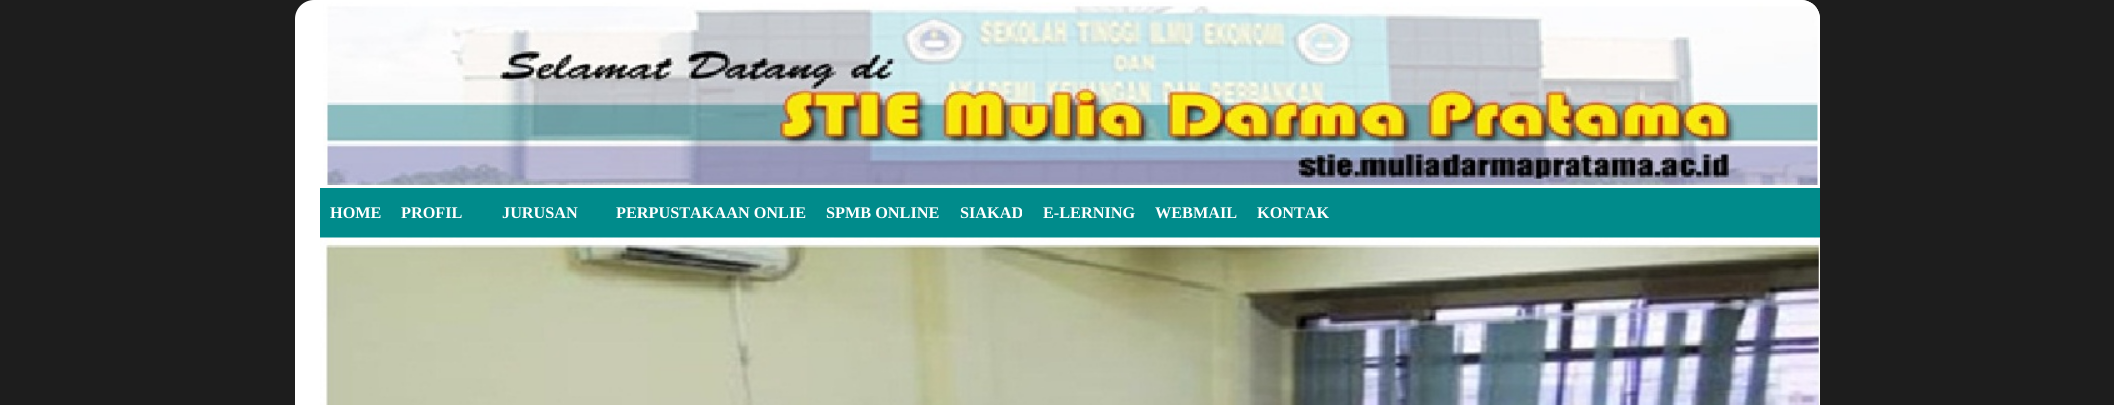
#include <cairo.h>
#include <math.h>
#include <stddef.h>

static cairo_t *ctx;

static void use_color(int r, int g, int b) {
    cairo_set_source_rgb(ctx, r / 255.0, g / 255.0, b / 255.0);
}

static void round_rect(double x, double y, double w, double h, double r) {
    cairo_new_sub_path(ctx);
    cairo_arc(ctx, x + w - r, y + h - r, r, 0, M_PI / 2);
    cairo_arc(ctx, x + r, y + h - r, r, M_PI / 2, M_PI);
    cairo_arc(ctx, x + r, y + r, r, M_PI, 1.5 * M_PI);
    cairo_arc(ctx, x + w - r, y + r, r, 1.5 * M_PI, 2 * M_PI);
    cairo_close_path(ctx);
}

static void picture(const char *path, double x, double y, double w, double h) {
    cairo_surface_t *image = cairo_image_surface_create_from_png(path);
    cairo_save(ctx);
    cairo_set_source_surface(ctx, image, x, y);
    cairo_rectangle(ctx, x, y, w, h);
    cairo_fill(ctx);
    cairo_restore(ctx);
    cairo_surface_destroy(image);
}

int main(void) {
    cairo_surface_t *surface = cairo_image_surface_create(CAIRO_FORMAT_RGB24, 2114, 405);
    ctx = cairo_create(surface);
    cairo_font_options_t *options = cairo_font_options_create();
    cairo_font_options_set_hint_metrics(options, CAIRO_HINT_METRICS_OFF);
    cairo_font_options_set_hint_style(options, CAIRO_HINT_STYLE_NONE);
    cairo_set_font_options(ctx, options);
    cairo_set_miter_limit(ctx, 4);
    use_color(29, 29, 29);
    cairo_paint(ctx);
    use_color(255, 255, 255);
    round_rect(295, 0, 1525, 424, 19);
    cairo_fill(ctx);
    cairo_new_path(ctx);
    cairo_move_to(ctx, 320, 0);
    cairo_line_to(ctx, 1801, 0);
    cairo_curve_to(ctx, 1811.5, 0, 1820, 8.5, 1820, 19);
    cairo_line_to(ctx, 1820, 188);
    cairo_line_to(ctx, 320, 188);
    cairo_close_path(ctx);
    cairo_fill(ctx);
    picture("img1.png", 323, 2, 1495, 183);
    use_color(0, 139, 139);
    cairo_rectangle(ctx, 320, 188, 1500, 50);
    cairo_fill(ctx);
    cairo_select_font_face(ctx, "Liberation Serif", CAIRO_FONT_SLANT_NORMAL, CAIRO_FONT_WEIGHT_BOLD);
    cairo_set_font_size(ctx, 16.25);
    use_color(255, 255, 255);
    cairo_move_to(ctx, 330, 218);
    cairo_show_text(ctx, "HOME");
    cairo_move_to(ctx, 401, 218);
    cairo_show_text(ctx, "PROFIL");
    cairo_move_to(ctx, 502, 218);
    cairo_show_text(ctx, "JURUSAN");
    cairo_move_to(ctx, 616, 218);
    cairo_show_text(ctx, "PERPUSTAKAAN ONLIE");
    cairo_move_to(ctx, 826, 218);
    cairo_show_text(ctx, "SPMB ONLINE");
    cairo_move_to(ctx, 960, 218);
    cairo_show_text(ctx, "SIAKAD");
    cairo_move_to(ctx, 1043, 218);
    cairo_show_text(ctx, "E-LERNING");
    cairo_move_to(ctx, 1155, 218);
    cairo_show_text(ctx, "WEBMAIL");
    cairo_move_to(ctx, 1257, 218);
    cairo_show_text(ctx, "KONTAK");
    picture("img2.png", 320, 237, 1500, 168);
    cairo_surface_write_to_png(surface, "result.png");
    cairo_font_options_destroy(options);
    cairo_destroy(ctx);
    cairo_surface_destroy(surface);
    return 0;
}
